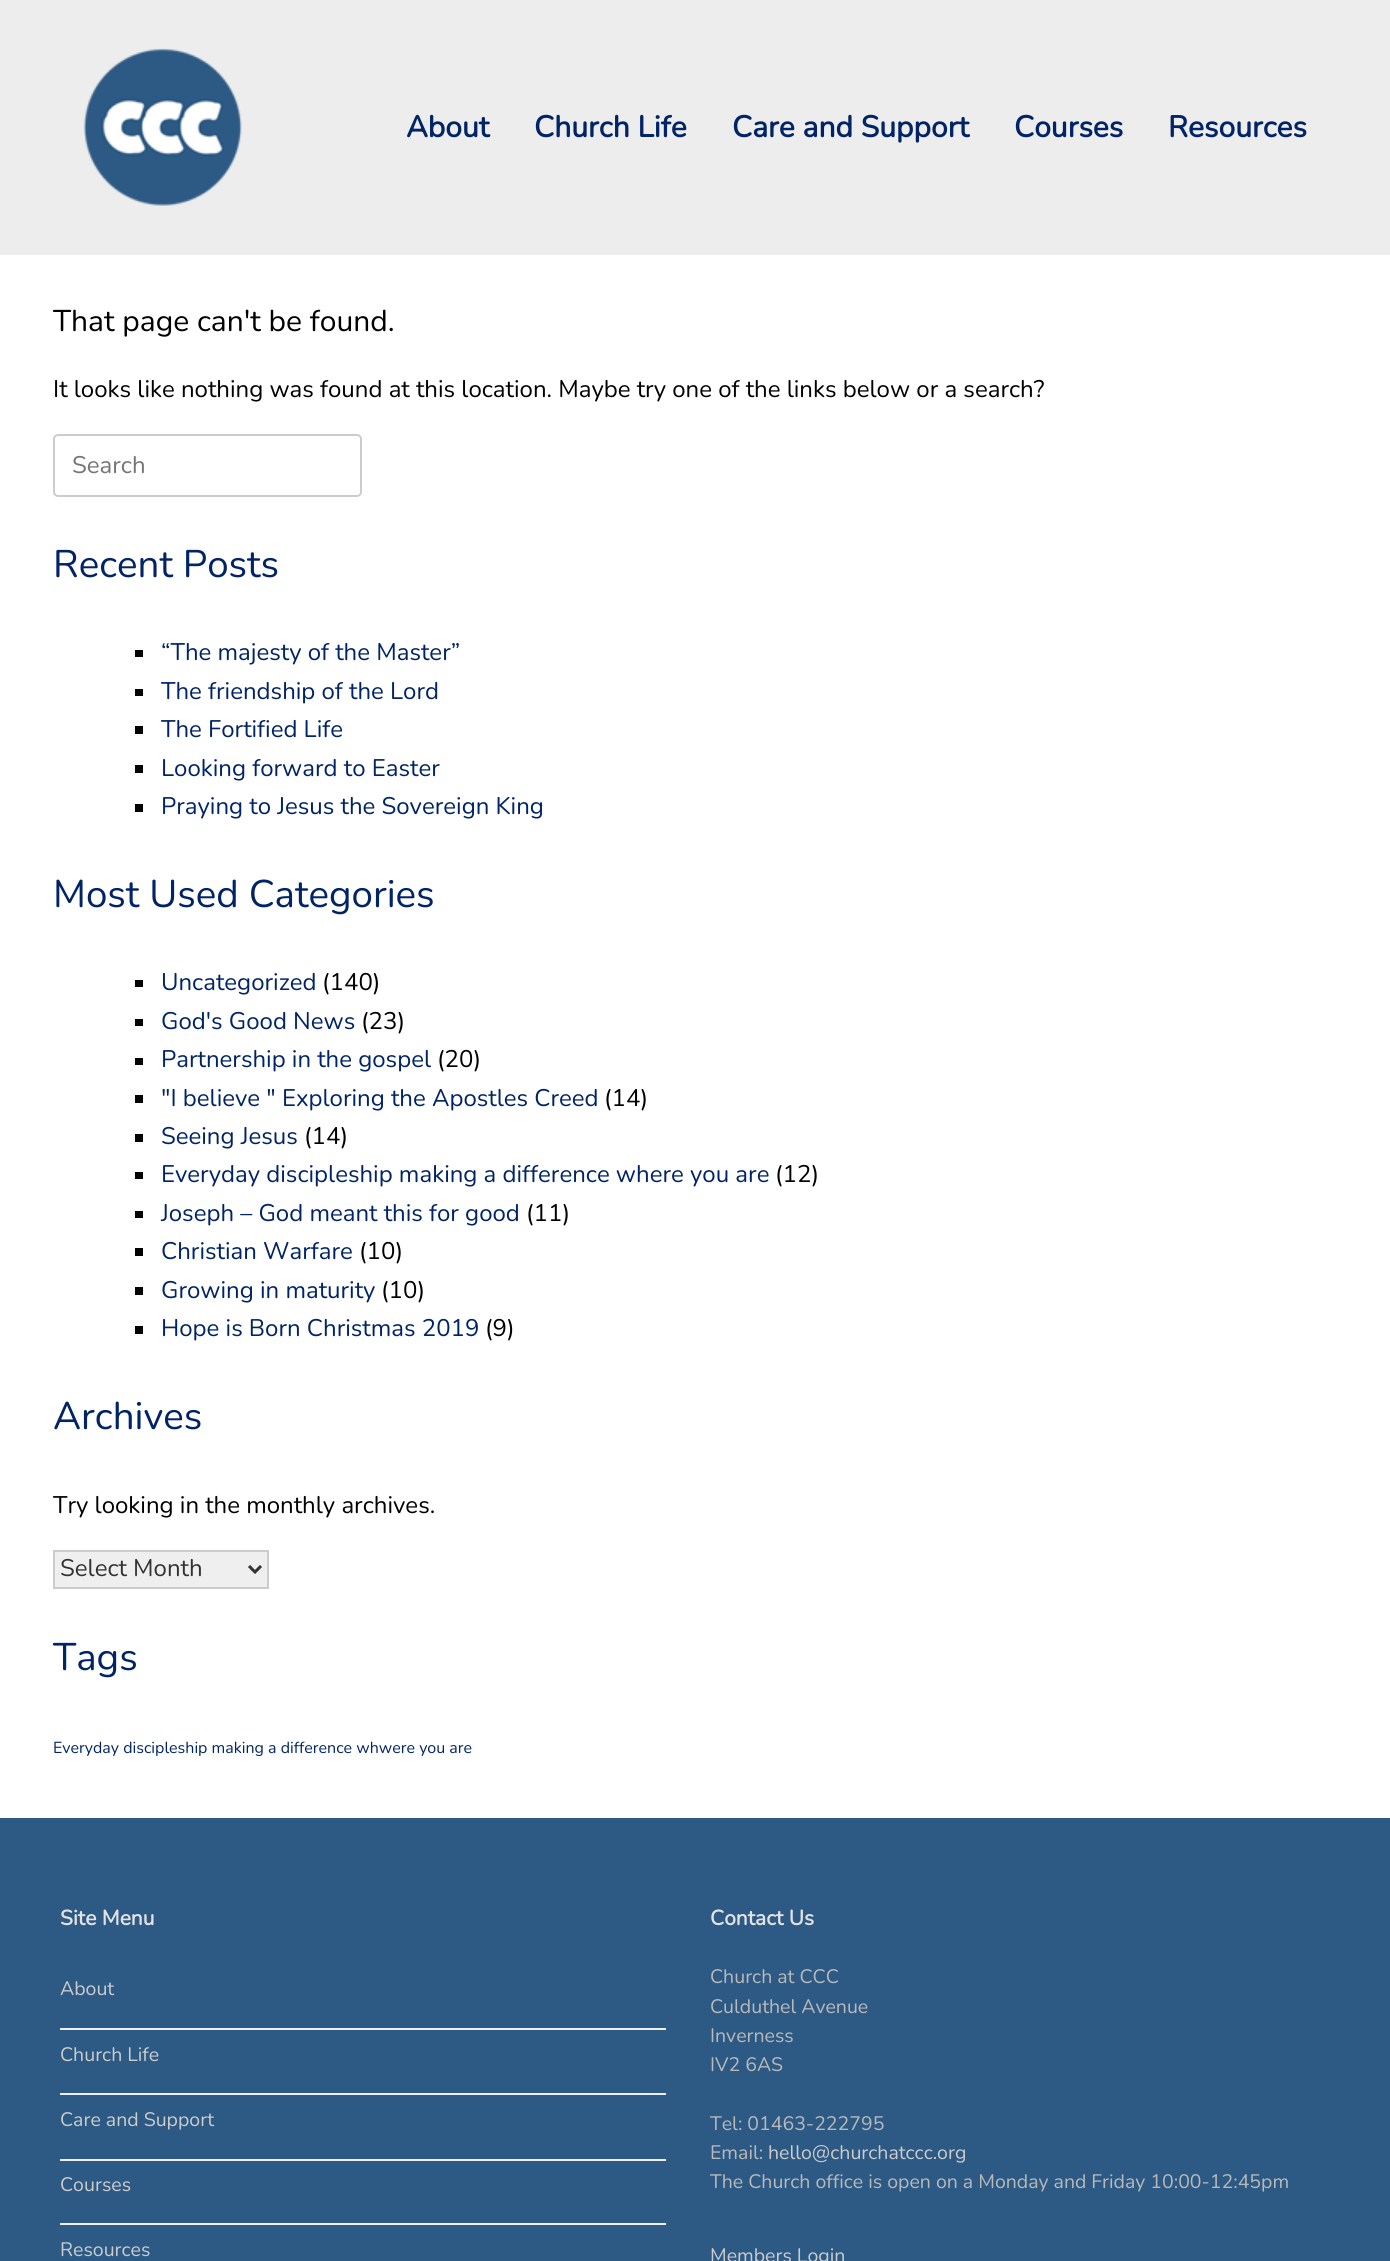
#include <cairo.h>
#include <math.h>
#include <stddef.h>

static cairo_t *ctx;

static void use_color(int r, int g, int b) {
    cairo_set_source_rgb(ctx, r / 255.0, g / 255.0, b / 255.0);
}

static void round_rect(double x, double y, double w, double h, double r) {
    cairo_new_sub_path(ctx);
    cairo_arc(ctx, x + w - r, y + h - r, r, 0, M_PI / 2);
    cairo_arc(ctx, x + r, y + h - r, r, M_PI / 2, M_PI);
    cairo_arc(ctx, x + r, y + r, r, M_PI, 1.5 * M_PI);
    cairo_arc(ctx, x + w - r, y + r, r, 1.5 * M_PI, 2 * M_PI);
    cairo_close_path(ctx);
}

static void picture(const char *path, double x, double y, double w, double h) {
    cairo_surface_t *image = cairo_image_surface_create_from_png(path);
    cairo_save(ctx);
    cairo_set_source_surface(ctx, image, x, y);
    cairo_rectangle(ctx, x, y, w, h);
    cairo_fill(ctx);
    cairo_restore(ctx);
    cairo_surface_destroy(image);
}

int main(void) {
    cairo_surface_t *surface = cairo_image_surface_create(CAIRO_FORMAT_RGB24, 1390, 2261);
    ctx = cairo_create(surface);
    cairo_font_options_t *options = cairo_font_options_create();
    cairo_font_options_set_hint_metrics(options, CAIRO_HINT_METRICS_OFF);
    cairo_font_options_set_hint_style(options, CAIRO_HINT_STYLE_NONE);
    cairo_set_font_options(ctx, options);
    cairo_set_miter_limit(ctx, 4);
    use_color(255, 255, 255);
    cairo_paint(ctx);
    use_color(237, 237, 237);
    cairo_rectangle(ctx, 0, 0, 1390, 255);
    cairo_fill(ctx);
    picture("img1.png", 83, 48, 159, 158);
    cairo_select_font_face(ctx, "Nunito", CAIRO_FONT_SLANT_NORMAL, CAIRO_FONT_WEIGHT_BOLD);
    cairo_set_font_size(ctx, 30);
    use_color(1, 36, 102);
    cairo_move_to(ctx, 406, 137);
    cairo_show_text(ctx, "About");
    cairo_move_to(ctx, 534, 137);
    cairo_show_text(ctx, "Church Life");
    cairo_move_to(ctx, 732, 137);
    cairo_show_text(ctx, "Care and Support");
    cairo_move_to(ctx, 1014, 137);
    cairo_show_text(ctx, "Courses");
    cairo_move_to(ctx, 1168, 137);
    cairo_show_text(ctx, "Resources");
    cairo_select_font_face(ctx, "Nunito ExtraLight", CAIRO_FONT_SLANT_NORMAL, CAIRO_FONT_WEIGHT_NORMAL);
    use_color(0, 0, 0);
    cairo_move_to(ctx, 53, 331);
    cairo_show_text(ctx, "That page can't be found.");
    cairo_set_font_size(ctx, 24);
    cairo_move_to(ctx, 53, 397);
    cairo_show_text(ctx, "It looks like nothing was found at this location. Maybe try one of the links below or a search?");
    round_rect(54, 435, 307, 61, 4);
    use_color(204, 204, 204);
    cairo_stroke(ctx);
    use_color(117, 117, 117);
    cairo_move_to(ctx, 72, 473);
    cairo_show_text(ctx, "Search");
    cairo_set_font_size(ctx, 38.5);
    use_color(1, 36, 102);
    cairo_move_to(ctx, 53, 577);
    cairo_show_text(ctx, "Recent Posts");
    use_color(0, 0, 0);
    cairo_rectangle(ctx, 135, 650, 8, 7);
    cairo_fill(ctx);
    cairo_set_font_size(ctx, 24);
    use_color(1, 36, 102);
    cairo_move_to(ctx, 161, 660);
    cairo_show_text(ctx, "“The majesty of the Master”");
    use_color(0, 0, 0);
    cairo_rectangle(ctx, 135, 689, 8, 7);
    cairo_fill(ctx);
    use_color(1, 36, 102);
    cairo_move_to(ctx, 161, 699);
    cairo_show_text(ctx, "The friendship of the Lord");
    use_color(0, 0, 0);
    cairo_rectangle(ctx, 135, 726, 8, 8);
    cairo_fill(ctx);
    use_color(1, 36, 102);
    cairo_move_to(ctx, 161, 737);
    cairo_show_text(ctx, "The Fortified Life");
    use_color(0, 0, 0);
    cairo_rectangle(ctx, 135, 765, 8, 8);
    cairo_fill(ctx);
    use_color(1, 36, 102);
    cairo_move_to(ctx, 161, 776);
    cairo_show_text(ctx, "Looking forward to Easter");
    use_color(0, 0, 0);
    cairo_rectangle(ctx, 135, 804, 8, 8);
    cairo_fill(ctx);
    use_color(1, 36, 102);
    cairo_move_to(ctx, 161, 814);
    cairo_show_text(ctx, "Praying to Jesus the Sovereign King");
    cairo_set_font_size(ctx, 38.5);
    cairo_move_to(ctx, 53, 907);
    cairo_show_text(ctx, "Most Used Categories");
    use_color(0, 0, 0);
    cairo_rectangle(ctx, 135, 980, 8, 7);
    cairo_fill(ctx);
    cairo_set_font_size(ctx, 24);
    use_color(1, 36, 102);
    cairo_move_to(ctx, 161, 990);
    cairo_show_text(ctx, "Uncategorized");
    use_color(0, 0, 0);
    cairo_move_to(ctx, 322, 990);
    cairo_show_text(ctx, "(140)");
    cairo_rectangle(ctx, 135, 1019, 8, 7);
    cairo_fill(ctx);
    use_color(1, 36, 102);
    cairo_move_to(ctx, 161, 1029);
    cairo_show_text(ctx, "God's Good News");
    use_color(0, 0, 0);
    cairo_move_to(ctx, 361, 1029);
    cairo_show_text(ctx, "(23)");
    cairo_rectangle(ctx, 135, 1058, 8, 7);
    cairo_fill(ctx);
    use_color(1, 36, 102);
    cairo_move_to(ctx, 161, 1067);
    cairo_show_text(ctx, "Partnership in the gospel");
    use_color(0, 0, 0);
    cairo_move_to(ctx, 437, 1067);
    cairo_show_text(ctx, "(20)");
    cairo_rectangle(ctx, 135, 1095, 8, 8);
    cairo_fill(ctx);
    use_color(1, 36, 102);
    cairo_move_to(ctx, 161, 1106);
    cairo_show_text(ctx, "\"I believe \" Exploring the Apostles Creed");
    use_color(0, 0, 0);
    cairo_move_to(ctx, 604, 1106);
    cairo_show_text(ctx, "(14)");
    cairo_rectangle(ctx, 135, 1134, 8, 8);
    cairo_fill(ctx);
    use_color(1, 36, 102);
    cairo_move_to(ctx, 161, 1144);
    cairo_show_text(ctx, "Seeing Jesus");
    use_color(0, 0, 0);
    cairo_move_to(ctx, 304, 1144);
    cairo_show_text(ctx, "(14)");
    cairo_rectangle(ctx, 135, 1172, 8, 7);
    cairo_fill(ctx);
    use_color(1, 36, 102);
    cairo_move_to(ctx, 161, 1182);
    cairo_show_text(ctx, "Everyday discipleship making a difference where you are");
    use_color(0, 0, 0);
    cairo_move_to(ctx, 775, 1182);
    cairo_show_text(ctx, "(12)");
    cairo_rectangle(ctx, 135, 1211, 8, 7);
    cairo_fill(ctx);
    use_color(1, 36, 102);
    cairo_move_to(ctx, 161, 1221);
    cairo_show_text(ctx, "Joseph – God meant this for good");
    use_color(0, 0, 0);
    cairo_move_to(ctx, 526, 1221);
    cairo_show_text(ctx, "(11)");
    cairo_rectangle(ctx, 135, 1248, 8, 8);
    cairo_fill(ctx);
    use_color(1, 36, 102);
    cairo_move_to(ctx, 161, 1259);
    cairo_show_text(ctx, "Christian Warfare");
    use_color(0, 0, 0);
    cairo_move_to(ctx, 359, 1259);
    cairo_show_text(ctx, "(10)");
    cairo_rectangle(ctx, 135, 1287, 8, 8);
    cairo_fill(ctx);
    use_color(1, 36, 102);
    cairo_move_to(ctx, 161, 1298);
    cairo_show_text(ctx, "Growing in maturity");
    use_color(0, 0, 0);
    cairo_move_to(ctx, 381, 1298);
    cairo_show_text(ctx, "(10)");
    cairo_rectangle(ctx, 135, 1326, 8, 8);
    cairo_fill(ctx);
    use_color(1, 36, 102);
    cairo_move_to(ctx, 161, 1336);
    cairo_show_text(ctx, "Hope is Born Christmas 2019");
    use_color(0, 0, 0);
    cairo_move_to(ctx, 485, 1336);
    cairo_show_text(ctx, "(9)");
    cairo_set_font_size(ctx, 38.5);
    use_color(1, 36, 102);
    cairo_move_to(ctx, 53, 1429);
    cairo_show_text(ctx, "Archives");
    cairo_set_font_size(ctx, 24);
    use_color(0, 0, 0);
    cairo_move_to(ctx, 53, 1513);
    cairo_show_text(ctx, "Try looking in the monthly archives.");
    use_color(239, 239, 239);
    cairo_rectangle(ctx, 54, 1551, 214, 37);
    cairo_fill_preserve(ctx);
    use_color(204, 204, 204);
    cairo_stroke(ctx);
    cairo_new_path(ctx);
    cairo_move_to(ctx, 249, 1566);
    cairo_line_to(ctx, 255, 1572);
    cairo_line_to(ctx, 261, 1566);
    use_color(51, 51, 51);
    cairo_set_line_width(ctx, 3);
    cairo_stroke(ctx);
    cairo_move_to(ctx, 60, 1576);
    cairo_show_text(ctx, "Select Month");
    cairo_set_font_size(ctx, 38.5);
    use_color(1, 36, 102);
    cairo_move_to(ctx, 53, 1670);
    cairo_show_text(ctx, "Tags");
    cairo_set_font_size(ctx, 16);
    cairo_move_to(ctx, 53, 1753);
    cairo_show_text(ctx, "Everyday discipleship making a difference whwere you are");
    use_color(45, 90, 132);
    cairo_rectangle(ctx, 0, 1818, 1390, 443);
    cairo_fill(ctx);
    cairo_select_font_face(ctx, "Nunito", CAIRO_FONT_SLANT_NORMAL, CAIRO_FONT_WEIGHT_BOLD);
    cairo_set_font_size(ctx, 21);
    use_color(226, 226, 226);
    cairo_move_to(ctx, 60, 1925);
    cairo_show_text(ctx, "Site Menu");
    use_color(238, 238, 238);
    cairo_rectangle(ctx, 60, 2028, 606, 2);
    cairo_fill(ctx);
    cairo_select_font_face(ctx, "Nunito ExtraLight", CAIRO_FONT_SLANT_NORMAL, CAIRO_FONT_WEIGHT_NORMAL);
    cairo_set_font_size(ctx, 19.5);
    use_color(204, 204, 204);
    cairo_move_to(ctx, 60, 1995);
    cairo_show_text(ctx, "About");
    use_color(238, 238, 238);
    cairo_rectangle(ctx, 60, 2093, 606, 2);
    cairo_fill(ctx);
    use_color(204, 204, 204);
    cairo_move_to(ctx, 60, 2061);
    cairo_show_text(ctx, "Church Life");
    use_color(238, 238, 238);
    cairo_rectangle(ctx, 60, 2159, 606, 2);
    cairo_fill(ctx);
    use_color(204, 204, 204);
    cairo_move_to(ctx, 60, 2126);
    cairo_show_text(ctx, "Care and Support");
    use_color(238, 238, 238);
    cairo_rectangle(ctx, 60, 2223, 606, 2);
    cairo_fill(ctx);
    use_color(204, 204, 204);
    cairo_move_to(ctx, 60, 2191);
    cairo_show_text(ctx, "Courses");
    cairo_move_to(ctx, 60, 2256);
    cairo_show_text(ctx, "Resources");
    cairo_select_font_face(ctx, "Nunito", CAIRO_FONT_SLANT_NORMAL, CAIRO_FONT_WEIGHT_BOLD);
    cairo_set_font_size(ctx, 21);
    use_color(226, 226, 226);
    cairo_move_to(ctx, 710, 1925);
    cairo_show_text(ctx, "Contact Us");
    cairo_select_font_face(ctx, "Nunito ExtraLight", CAIRO_FONT_SLANT_NORMAL, CAIRO_FONT_WEIGHT_NORMAL);
    cairo_set_font_size(ctx, 19.5);
    use_color(185, 185, 185);
    cairo_move_to(ctx, 710, 1983);
    cairo_show_text(ctx, "Church at CCC");
    cairo_move_to(ctx, 710, 2013);
    cairo_show_text(ctx, "Culduthel Avenue");
    cairo_move_to(ctx, 710, 2042);
    cairo_show_text(ctx, "Inverness");
    cairo_move_to(ctx, 710, 2071);
    cairo_show_text(ctx, "IV2 6AS");
    cairo_move_to(ctx, 710, 2130);
    cairo_show_text(ctx, "Tel: 01463-222795");
    cairo_move_to(ctx, 710, 2159);
    cairo_show_text(ctx, "Email:");
    use_color(204, 204, 204);
    cairo_move_to(ctx, 768, 2159);
    cairo_show_text(ctx, "hello@churchatccc.org");
    use_color(185, 185, 185);
    cairo_move_to(ctx, 710, 2188);
    cairo_show_text(ctx, "The Church office is open on a Monday and Friday 10:00-12:45pm");
    use_color(204, 204, 204);
    cairo_move_to(ctx, 710, 2262);
    cairo_show_text(ctx, "Members Login");
    cairo_surface_write_to_png(surface, "result.png");
    cairo_font_options_destroy(options);
    cairo_destroy(ctx);
    cairo_surface_destroy(surface);
    return 0;
}
